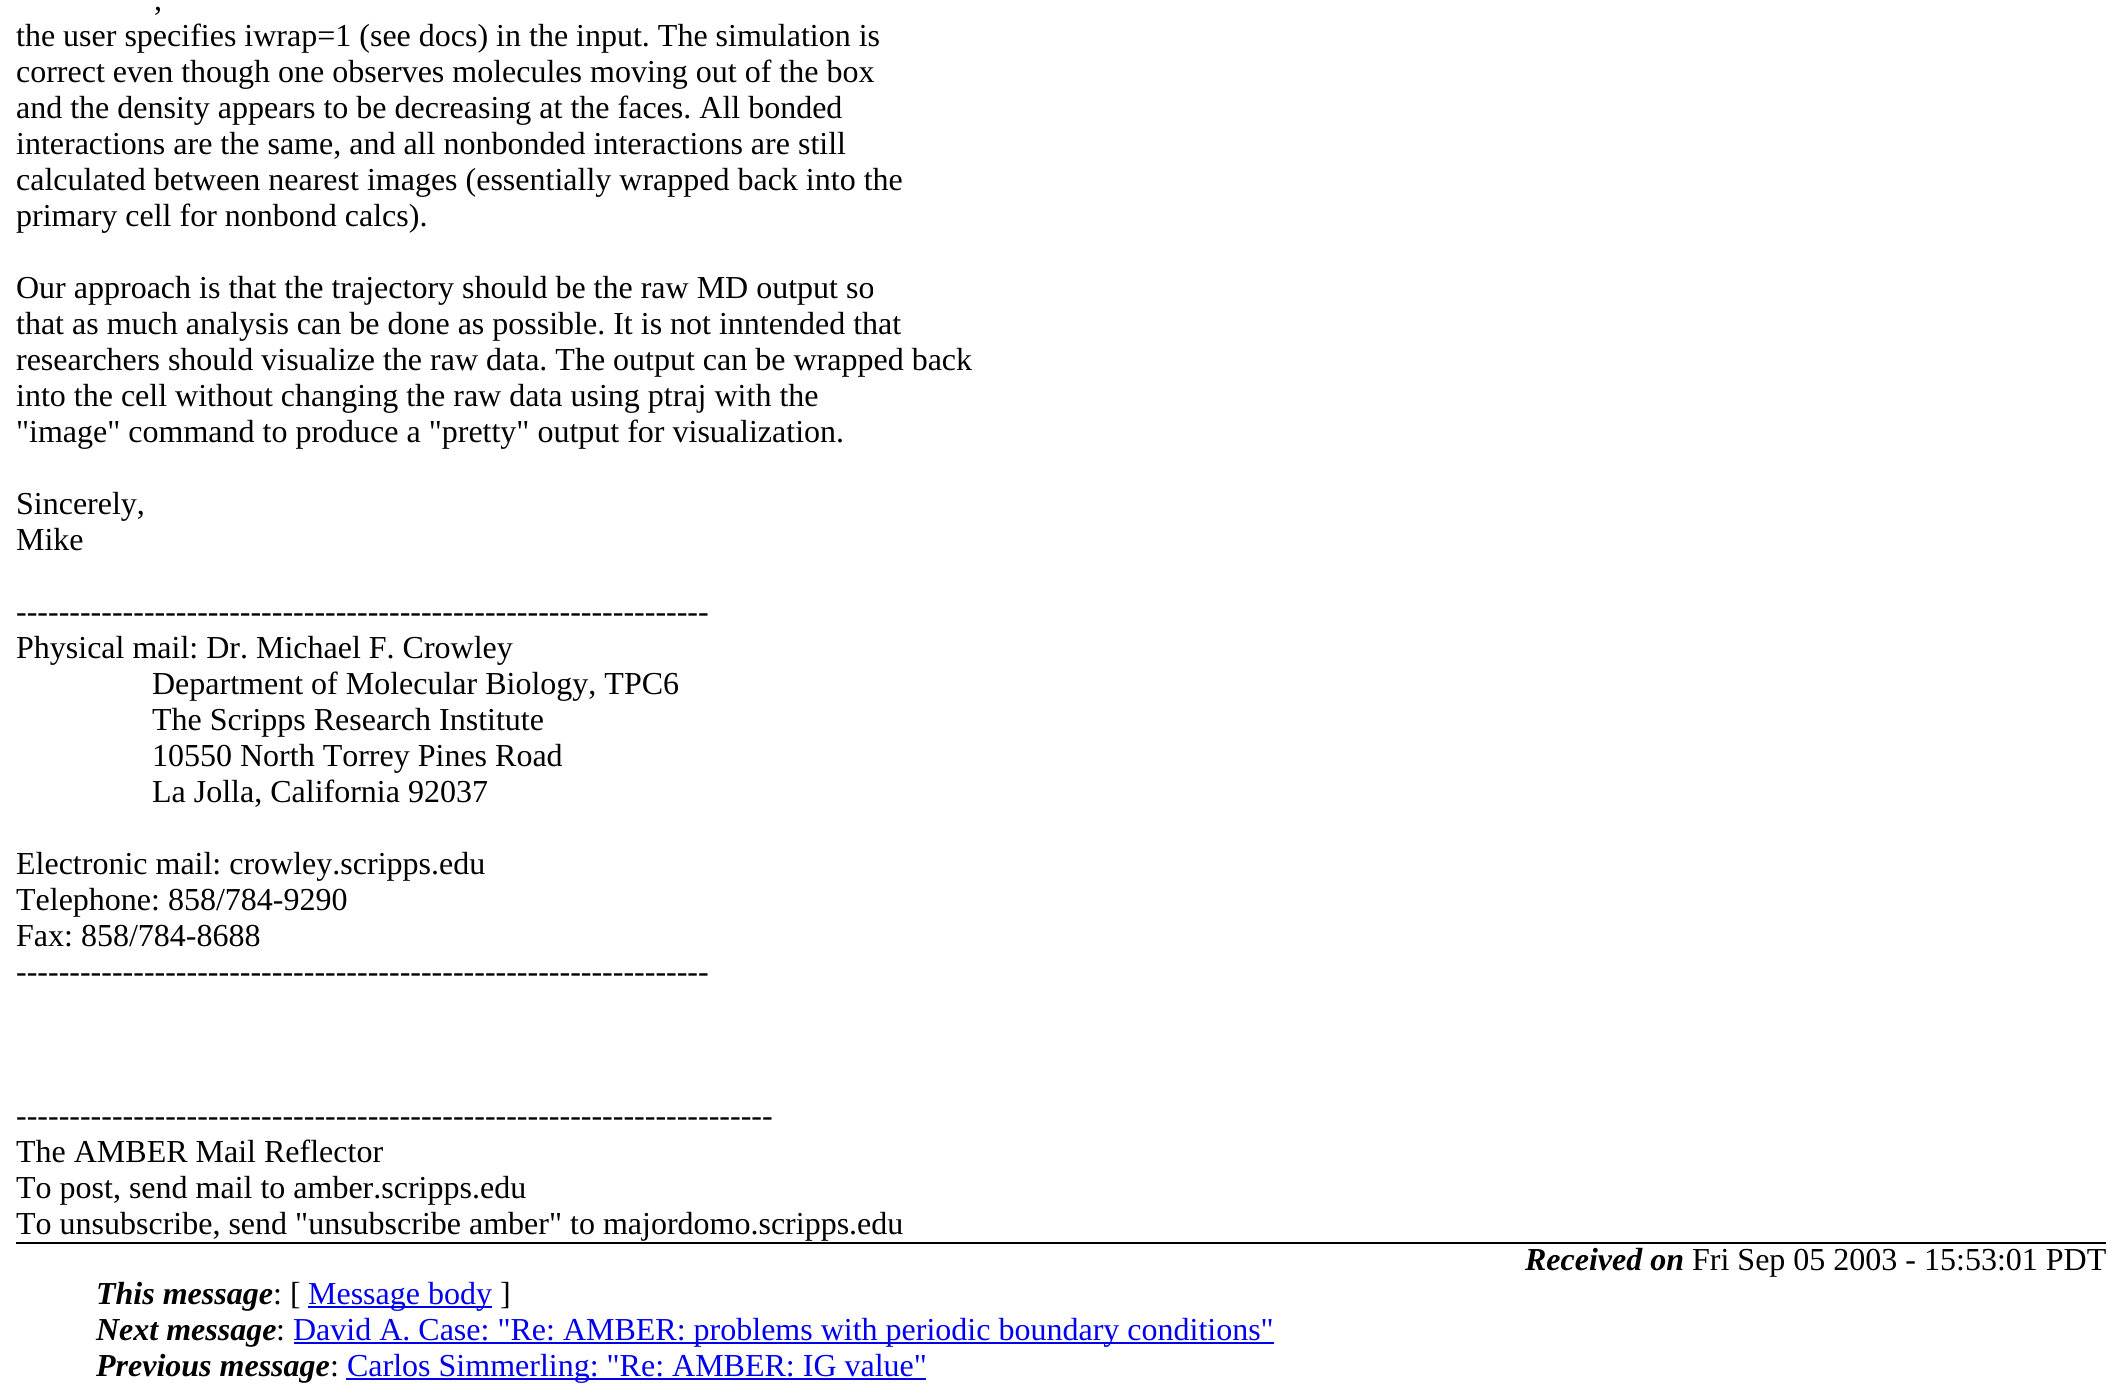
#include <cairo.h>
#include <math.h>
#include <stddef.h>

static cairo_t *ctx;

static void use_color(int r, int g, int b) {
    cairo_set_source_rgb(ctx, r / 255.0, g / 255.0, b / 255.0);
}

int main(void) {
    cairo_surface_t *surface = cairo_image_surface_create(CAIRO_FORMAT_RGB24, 2122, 1396);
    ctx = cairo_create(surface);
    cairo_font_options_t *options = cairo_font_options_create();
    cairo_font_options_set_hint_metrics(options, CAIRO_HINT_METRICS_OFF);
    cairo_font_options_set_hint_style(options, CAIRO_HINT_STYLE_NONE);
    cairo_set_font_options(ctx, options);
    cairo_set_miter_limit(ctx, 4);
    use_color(255, 255, 255);
    cairo_paint(ctx);
    cairo_select_font_face(ctx, "Liberation Serif", CAIRO_FONT_SLANT_NORMAL, CAIRO_FONT_WEIGHT_NORMAL);
    cairo_set_font_size(ctx, 32);
    use_color(0, 0, 0);
    cairo_move_to(ctx, 154, 10);
    cairo_show_text(ctx, ",");
    cairo_move_to(ctx, 16, 46);
    cairo_show_text(ctx, "the user specifies iwrap=1 (see docs) in the input. The simulation is");
    cairo_move_to(ctx, 16, 82);
    cairo_show_text(ctx, "correct even though one observes molecules moving out of the box");
    cairo_move_to(ctx, 16, 118);
    cairo_show_text(ctx, "and the density appears to be decreasing at the faces. All bonded");
    cairo_move_to(ctx, 16, 154);
    cairo_show_text(ctx, "interactions are the same, and all nonbonded interactions are still");
    cairo_move_to(ctx, 16, 190);
    cairo_show_text(ctx, "calculated between nearest images (essentially wrapped back into the");
    cairo_move_to(ctx, 16, 226);
    cairo_show_text(ctx, "primary cell for nonbond calcs).");
    cairo_move_to(ctx, 16, 298);
    cairo_show_text(ctx, "Our approach is that the trajectory should be the raw MD output so");
    cairo_move_to(ctx, 16, 334);
    cairo_show_text(ctx, "that as much analysis can be done as possible. It is not inntended that");
    cairo_move_to(ctx, 16, 370);
    cairo_show_text(ctx, "researchers should visualize the raw data. The output can be wrapped back");
    cairo_move_to(ctx, 16, 406);
    cairo_show_text(ctx, "into the cell without changing the raw data using ptraj with the");
    cairo_move_to(ctx, 16, 442);
    cairo_show_text(ctx, "\"image\" command to produce a \"pretty\" output for visualization.");
    cairo_move_to(ctx, 16, 514);
    cairo_show_text(ctx, "Sincerely,");
    cairo_move_to(ctx, 16, 550);
    cairo_show_text(ctx, "Mike");
    cairo_move_to(ctx, 16, 622);
    cairo_show_text(ctx, "-----------------------------------------------------------------");
    cairo_move_to(ctx, 16, 658);
    cairo_show_text(ctx, "Physical mail: Dr. Michael F. Crowley");
    cairo_move_to(ctx, 152, 694);
    cairo_show_text(ctx, "Department of Molecular Biology, TPC6");
    cairo_move_to(ctx, 152, 730);
    cairo_show_text(ctx, "The Scripps Research Institute");
    cairo_move_to(ctx, 152, 766);
    cairo_show_text(ctx, "10550 North Torrey Pines Road");
    cairo_move_to(ctx, 152, 802);
    cairo_show_text(ctx, "La Jolla, California 92037");
    cairo_move_to(ctx, 16, 874);
    cairo_show_text(ctx, "Electronic mail: crowley.scripps.edu");
    cairo_move_to(ctx, 16, 910);
    cairo_show_text(ctx, "Telephone: 858/784-9290");
    cairo_move_to(ctx, 16, 946);
    cairo_show_text(ctx, "Fax: 858/784-8688");
    cairo_move_to(ctx, 16, 982);
    cairo_show_text(ctx, "-----------------------------------------------------------------");
    cairo_move_to(ctx, 16, 1126);
    cairo_show_text(ctx, "-----------------------------------------------------------------------");
    cairo_move_to(ctx, 16, 1162);
    cairo_show_text(ctx, "The AMBER Mail Reflector");
    cairo_move_to(ctx, 16, 1198);
    cairo_show_text(ctx, "To post, send mail to amber.scripps.edu");
    cairo_move_to(ctx, 16, 1234);
    cairo_show_text(ctx, "To unsubscribe, send \"unsubscribe amber\" to majordomo.scripps.edu");
    cairo_select_font_face(ctx, "Liberation Serif", CAIRO_FONT_SLANT_ITALIC, CAIRO_FONT_WEIGHT_BOLD);
    cairo_move_to(ctx, 1525, 1270);
    cairo_show_text(ctx, "Received on");
    cairo_select_font_face(ctx, "Liberation Serif", CAIRO_FONT_SLANT_NORMAL, CAIRO_FONT_WEIGHT_NORMAL);
    cairo_move_to(ctx, 1692, 1270);
    cairo_show_text(ctx, "Fri Sep 05 2003 - 15:53:01 PDT");
    cairo_rectangle(ctx, 16, 1242, 2090, 2);
    cairo_fill(ctx);
    cairo_select_font_face(ctx, "Liberation Serif", CAIRO_FONT_SLANT_ITALIC, CAIRO_FONT_WEIGHT_BOLD);
    cairo_move_to(ctx, 96, 1304);
    cairo_show_text(ctx, "This message");
    cairo_select_font_face(ctx, "Liberation Serif", CAIRO_FONT_SLANT_NORMAL, CAIRO_FONT_WEIGHT_NORMAL);
    cairo_move_to(ctx, 273, 1304);
    cairo_show_text(ctx, ": [");
    use_color(0, 0, 238);
    cairo_rectangle(ctx, 308, 1306, 184, 2);
    cairo_fill(ctx);
    cairo_move_to(ctx, 308, 1304);
    cairo_show_text(ctx, "Message body");
    use_color(0, 0, 0);
    cairo_move_to(ctx, 500, 1304);
    cairo_show_text(ctx, "]");
    cairo_select_font_face(ctx, "Liberation Serif", CAIRO_FONT_SLANT_ITALIC, CAIRO_FONT_WEIGHT_BOLD);
    cairo_move_to(ctx, 96, 1340);
    cairo_show_text(ctx, "Next message");
    cairo_select_font_face(ctx, "Liberation Serif", CAIRO_FONT_SLANT_NORMAL, CAIRO_FONT_WEIGHT_NORMAL);
    cairo_move_to(ctx, 276, 1340);
    cairo_show_text(ctx, ":");
    use_color(0, 0, 238);
    cairo_rectangle(ctx, 294, 1342, 980, 2);
    cairo_fill(ctx);
    cairo_move_to(ctx, 293, 1340);
    cairo_show_text(ctx, "David A. Case: \"Re: AMBER: problems with periodic boundary conditions\"");
    cairo_select_font_face(ctx, "Liberation Serif", CAIRO_FONT_SLANT_ITALIC, CAIRO_FONT_WEIGHT_BOLD);
    use_color(0, 0, 0);
    cairo_move_to(ctx, 96, 1376);
    cairo_show_text(ctx, "Previous message");
    cairo_select_font_face(ctx, "Liberation Serif", CAIRO_FONT_SLANT_NORMAL, CAIRO_FONT_WEIGHT_NORMAL);
    cairo_move_to(ctx, 330, 1376);
    cairo_show_text(ctx, ":");
    use_color(0, 0, 238);
    cairo_rectangle(ctx, 346, 1378, 580, 2);
    cairo_fill(ctx);
    cairo_move_to(ctx, 347, 1376);
    cairo_show_text(ctx, "Carlos Simmerling: \"Re: AMBER: IG value\"");
    cairo_surface_write_to_png(surface, "result.png");
    cairo_font_options_destroy(options);
    cairo_destroy(ctx);
    cairo_surface_destroy(surface);
    return 0;
}
